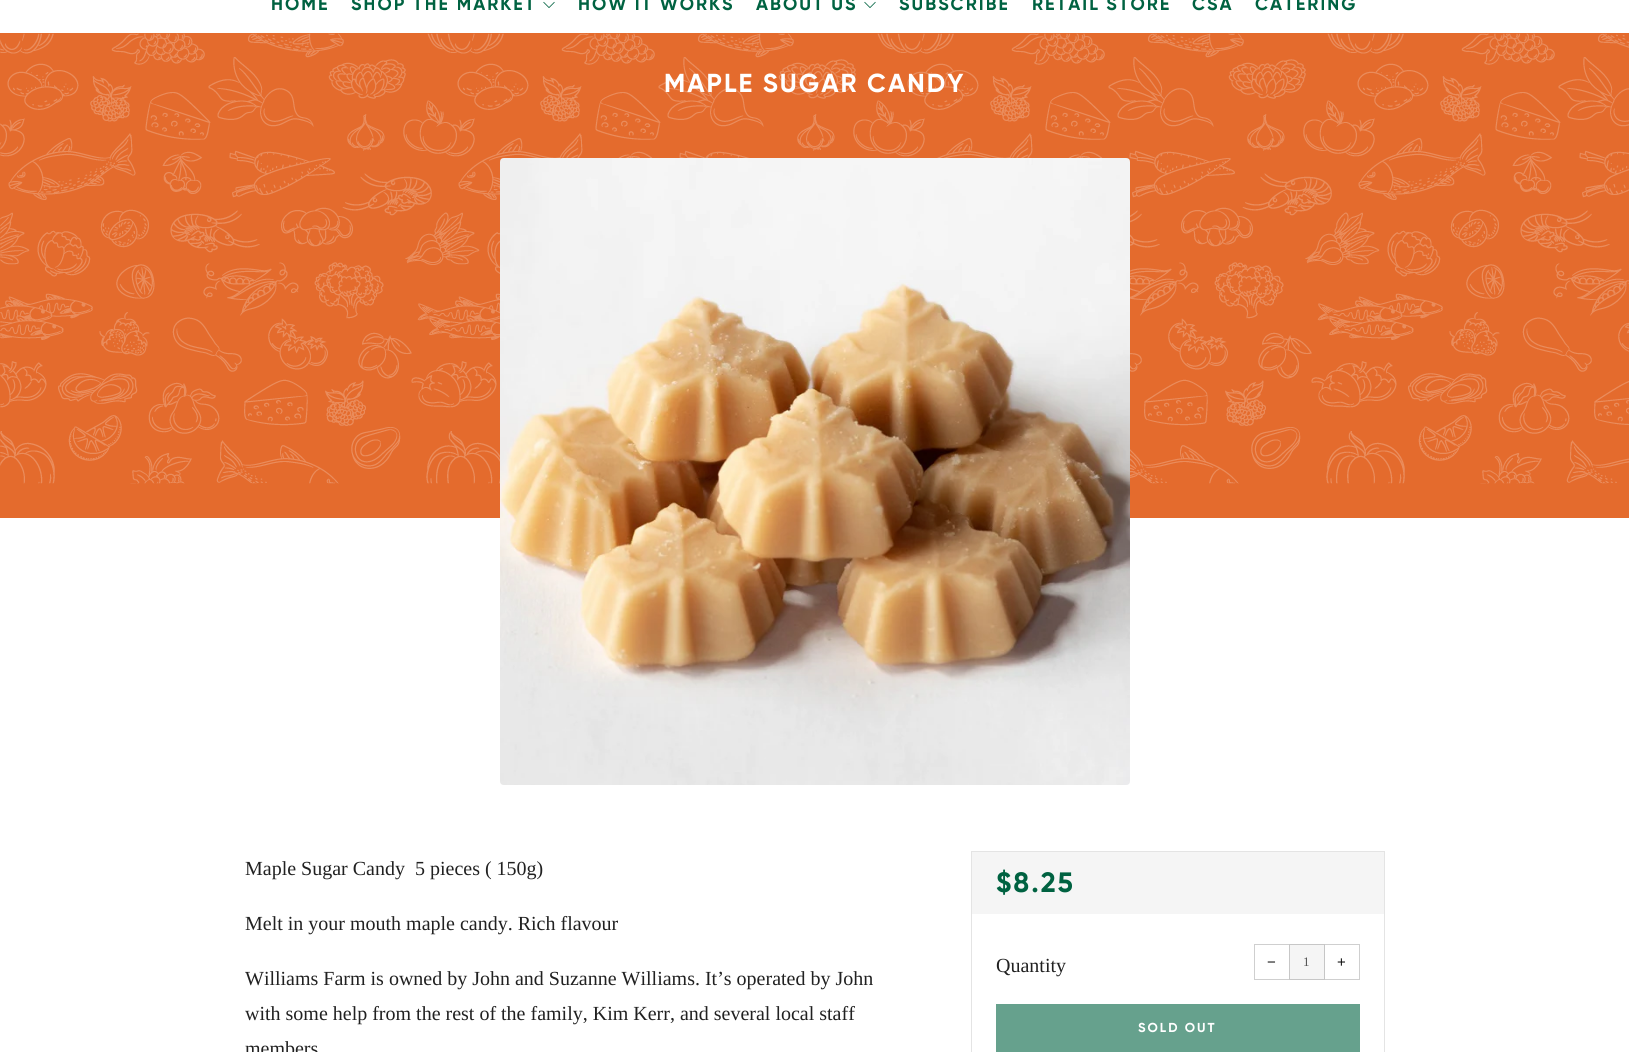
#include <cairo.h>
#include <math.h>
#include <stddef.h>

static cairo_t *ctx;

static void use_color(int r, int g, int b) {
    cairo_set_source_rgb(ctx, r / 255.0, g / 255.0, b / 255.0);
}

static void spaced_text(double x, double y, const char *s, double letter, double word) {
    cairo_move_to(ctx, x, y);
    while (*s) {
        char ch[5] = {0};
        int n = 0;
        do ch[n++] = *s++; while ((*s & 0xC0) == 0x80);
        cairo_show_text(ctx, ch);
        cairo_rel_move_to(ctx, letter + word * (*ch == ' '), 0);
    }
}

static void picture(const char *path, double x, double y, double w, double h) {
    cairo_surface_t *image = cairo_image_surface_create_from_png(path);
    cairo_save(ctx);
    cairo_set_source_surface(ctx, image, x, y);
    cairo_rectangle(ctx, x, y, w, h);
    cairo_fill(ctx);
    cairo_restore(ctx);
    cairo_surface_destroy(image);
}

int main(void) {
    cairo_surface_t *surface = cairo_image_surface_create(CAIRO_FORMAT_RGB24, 1629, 1052);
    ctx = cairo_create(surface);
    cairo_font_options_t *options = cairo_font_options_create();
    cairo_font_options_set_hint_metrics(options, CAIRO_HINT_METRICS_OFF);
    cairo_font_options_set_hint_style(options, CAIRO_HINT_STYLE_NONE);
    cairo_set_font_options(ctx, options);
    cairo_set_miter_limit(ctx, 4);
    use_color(255, 255, 255);
    cairo_paint(ctx);
    cairo_select_font_face(ctx, "Gilroy", CAIRO_FONT_SLANT_NORMAL, CAIRO_FONT_WEIGHT_BOLD);
    cairo_set_font_size(ctx, 18);
    use_color(0, 98, 65);
    spaced_text(271, 10, "HOME", 2, 0);
    spaced_text(351, 10, "SHOP THE MARKET", 2, 0);
    picture("img1.png", 543, 1, 12, 7);
    spaced_text(578, 10, "HOW IT WORKS", 2, 0);
    spaced_text(756, 10, "ABOUT US", 2, 0);
    picture("img1.png", 864, 1, 12, 7);
    spaced_text(899, 10, "SUBSCRIBE", 2, 0);
    spaced_text(1032, 10, "RETAIL STORE", 2, 0);
    spaced_text(1192, 10, "CSA", 2, 0);
    spaced_text(1255, 10, "CATERING", 2, 0);
    use_color(228, 107, 45);
    cairo_rectangle(ctx, 0, 33, 1629, 485);
    cairo_fill(ctx);
    picture("img2.png", 0, 33, 1629, 451);
    cairo_set_font_size(ctx, 26);
    use_color(255, 255, 255);
    spaced_text(664, 92, "MAPLE SUGAR CANDY", 2, 0);
    picture("img3.png", 500, 158, 630, 627);
    cairo_select_font_face(ctx, "Liberation Serif", CAIRO_FONT_SLANT_NORMAL, CAIRO_FONT_WEIGHT_NORMAL);
    cairo_set_font_size(ctx, 20);
    use_color(33, 33, 33);
    cairo_move_to(ctx, 245, 875);
    cairo_show_text(ctx, "Maple Sugar Candy  5 pieces ( 150g)");
    cairo_move_to(ctx, 245, 930);
    cairo_show_text(ctx, "Melt in your mouth maple candy. Rich flavour");
    cairo_move_to(ctx, 245, 985);
    cairo_show_text(ctx, "Williams Farm is owned by John and Suzanne Williams. It’s operated by John");
    cairo_move_to(ctx, 245, 1020);
    cairo_show_text(ctx, "with some help from the rest of the family, Kim Kerr, and several local staff");
    cairo_move_to(ctx, 245, 1055);
    cairo_show_text(ctx, "members");
    cairo_rectangle(ctx, 971.5, 851.5, 413, 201);
    use_color(228, 228, 228);
    cairo_set_line_width(ctx, 1);
    cairo_stroke(ctx);
    use_color(245, 245, 245);
    cairo_rectangle(ctx, 972, 852, 412, 62);
    cairo_fill(ctx);
    cairo_select_font_face(ctx, "Gilroy", CAIRO_FONT_SLANT_NORMAL, CAIRO_FONT_WEIGHT_BOLD);
    cairo_set_font_size(ctx, 28);
    use_color(0, 98, 65);
    spaced_text(996, 892, "$8.25", 2, 0);
    cairo_select_font_face(ctx, "Liberation Serif", CAIRO_FONT_SLANT_NORMAL, CAIRO_FONT_WEIGHT_NORMAL);
    cairo_set_font_size(ctx, 20);
    use_color(33, 33, 33);
    cairo_move_to(ctx, 996, 972);
    cairo_show_text(ctx, "Quantity");
    cairo_rectangle(ctx, 1254.5, 944.5, 35, 35);
    use_color(207, 207, 207);
    cairo_stroke(ctx);
    cairo_select_font_face(ctx, "Liberation Sans", CAIRO_FONT_SLANT_NORMAL, CAIRO_FONT_WEIGHT_NORMAL);
    cairo_set_font_size(ctx, 15);
    use_color(17, 17, 17);
    cairo_move_to(ctx, 1267, 967);
    cairo_show_text(ctx, "−");
    use_color(245, 245, 245);
    cairo_rectangle(ctx, 1289.5, 944.5, 35, 35);
    cairo_fill_preserve(ctx);
    use_color(199, 199, 199);
    cairo_stroke(ctx);
    cairo_select_font_face(ctx, "Liberation Serif", CAIRO_FONT_SLANT_NORMAL, CAIRO_FONT_WEIGHT_NORMAL);
    cairo_set_font_size(ctx, 13);
    use_color(85, 85, 85);
    cairo_move_to(ctx, 1303, 966);
    cairo_show_text(ctx, "1");
    cairo_set_source_rgba(ctx, 1, 1, 1, 0.8);
    cairo_rectangle(ctx, 1324, 944, 1, 36);
    cairo_fill(ctx);
    cairo_rectangle(ctx, 1324.5, 944.5, 35, 35);
    cairo_set_source_rgba(ctx, 0.067, 0.067, 0.067, 0.2);
    cairo_stroke(ctx);
    cairo_select_font_face(ctx, "Liberation Sans", CAIRO_FONT_SLANT_NORMAL, CAIRO_FONT_WEIGHT_NORMAL);
    cairo_set_font_size(ctx, 15);
    use_color(17, 17, 17);
    cairo_move_to(ctx, 1337, 967);
    cairo_show_text(ctx, "+");
    use_color(102, 161, 141);
    cairo_rectangle(ctx, 996, 1004, 364, 48);
    cairo_fill(ctx);
    cairo_select_font_face(ctx, "Gilroy", CAIRO_FONT_SLANT_NORMAL, CAIRO_FONT_WEIGHT_BOLD);
    cairo_set_font_size(ctx, 13);
    use_color(255, 255, 255);
    spaced_text(1138, 1032, "SOLD OUT", 2, 0);
    cairo_surface_write_to_png(surface, "result.png");
    cairo_font_options_destroy(options);
    cairo_destroy(ctx);
    cairo_surface_destroy(surface);
    return 0;
}
